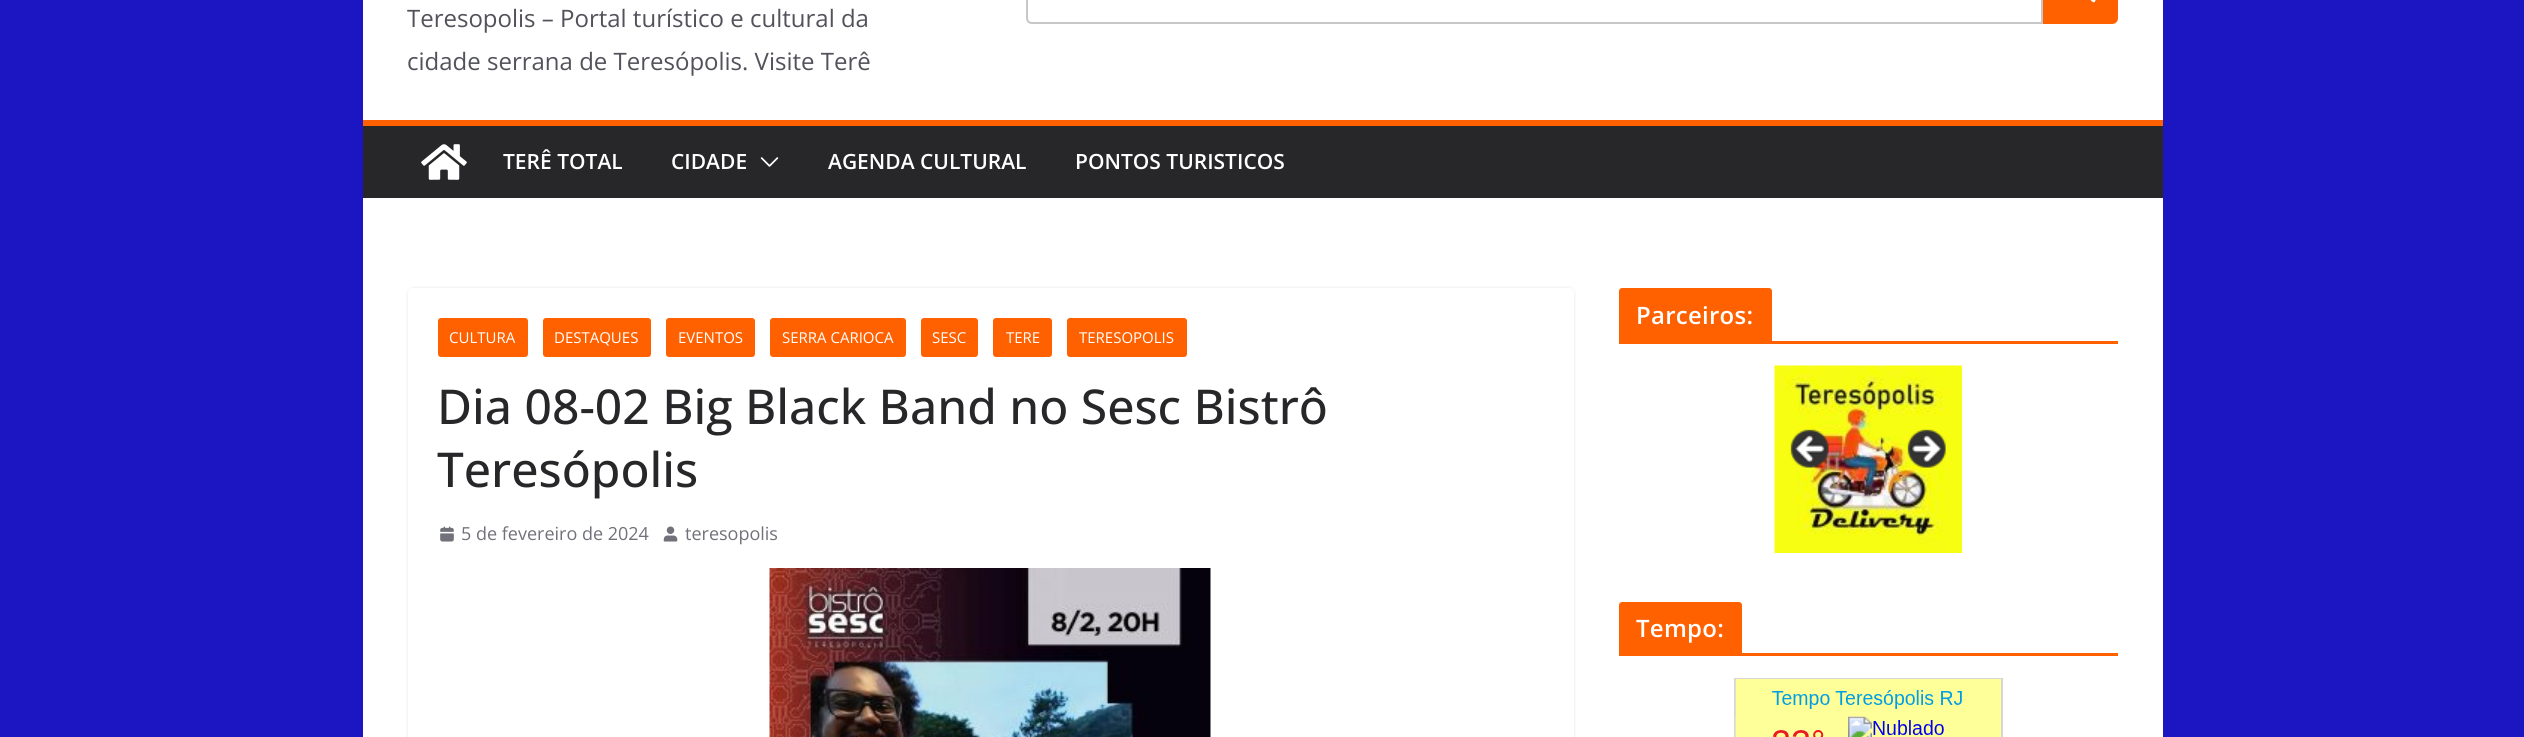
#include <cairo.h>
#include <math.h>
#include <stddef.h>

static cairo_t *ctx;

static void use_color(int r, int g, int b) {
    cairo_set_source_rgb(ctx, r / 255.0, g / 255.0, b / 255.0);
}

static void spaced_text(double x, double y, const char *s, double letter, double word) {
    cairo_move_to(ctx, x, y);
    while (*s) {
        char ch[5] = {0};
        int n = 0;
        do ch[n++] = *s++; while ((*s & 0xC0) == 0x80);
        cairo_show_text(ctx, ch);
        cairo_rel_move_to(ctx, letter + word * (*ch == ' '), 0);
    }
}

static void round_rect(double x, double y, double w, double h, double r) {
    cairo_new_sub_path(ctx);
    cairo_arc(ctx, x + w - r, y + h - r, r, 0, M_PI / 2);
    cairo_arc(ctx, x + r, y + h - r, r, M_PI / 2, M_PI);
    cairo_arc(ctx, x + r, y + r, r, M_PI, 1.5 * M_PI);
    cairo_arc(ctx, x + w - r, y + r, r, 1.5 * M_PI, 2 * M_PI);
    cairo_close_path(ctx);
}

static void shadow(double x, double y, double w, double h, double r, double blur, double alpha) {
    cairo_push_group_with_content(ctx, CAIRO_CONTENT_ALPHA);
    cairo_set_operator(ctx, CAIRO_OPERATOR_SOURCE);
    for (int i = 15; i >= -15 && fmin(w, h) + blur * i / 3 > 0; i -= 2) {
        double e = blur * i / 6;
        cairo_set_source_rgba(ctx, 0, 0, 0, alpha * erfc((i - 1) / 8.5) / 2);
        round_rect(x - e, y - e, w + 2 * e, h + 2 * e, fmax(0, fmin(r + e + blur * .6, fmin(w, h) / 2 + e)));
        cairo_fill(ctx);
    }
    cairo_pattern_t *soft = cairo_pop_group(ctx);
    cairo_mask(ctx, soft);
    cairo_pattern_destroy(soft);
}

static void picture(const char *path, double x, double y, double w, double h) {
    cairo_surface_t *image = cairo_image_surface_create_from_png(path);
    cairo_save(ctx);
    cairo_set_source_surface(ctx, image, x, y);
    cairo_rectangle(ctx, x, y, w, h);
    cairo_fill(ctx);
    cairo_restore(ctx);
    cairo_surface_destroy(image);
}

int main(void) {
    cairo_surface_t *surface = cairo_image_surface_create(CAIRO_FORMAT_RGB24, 2524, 737);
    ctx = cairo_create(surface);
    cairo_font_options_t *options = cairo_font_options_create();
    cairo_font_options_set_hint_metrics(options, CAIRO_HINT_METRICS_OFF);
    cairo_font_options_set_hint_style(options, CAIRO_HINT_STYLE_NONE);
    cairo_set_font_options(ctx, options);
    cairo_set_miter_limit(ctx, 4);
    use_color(27, 22, 194);
    cairo_paint(ctx);
    use_color(255, 255, 255);
    cairo_rectangle(ctx, 363, 0, 1800, 120);
    cairo_fill(ctx);
    cairo_select_font_face(ctx, "Open Sans", CAIRO_FONT_SLANT_NORMAL, CAIRO_FONT_WEIGHT_NORMAL);
    cairo_set_font_size(ctx, 24);
    use_color(82, 82, 91);
    cairo_move_to(ctx, 407, 27);
    cairo_show_text(ctx, "Teresopolis – Portal turístico e cultural da");
    cairo_move_to(ctx, 407, 70);
    cairo_show_text(ctx, "cidade serrana de Teresópolis. Visite Terê");
    cairo_new_path(ctx);
    cairo_move_to(ctx, 1032, -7);
    cairo_line_to(ctx, 2042, -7);
    cairo_line_to(ctx, 2042, 23);
    cairo_line_to(ctx, 1032, 23);
    cairo_curve_to(ctx, 1029, 23, 1027, 21, 1027, 18);
    cairo_line_to(ctx, 1027, -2);
    cairo_curve_to(ctx, 1027, -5, 1029, -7, 1032, -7);
    cairo_close_path(ctx);
    use_color(199, 199, 199);
    cairo_stroke(ctx);
    use_color(255, 97, 0);
    cairo_new_path(ctx);
    cairo_move_to(ctx, 2044, -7);
    cairo_line_to(ctx, 2112, -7);
    cairo_curve_to(ctx, 2115, -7, 2117, -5, 2117, -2);
    cairo_line_to(ctx, 2117, 18);
    cairo_curve_to(ctx, 2117, 21, 2115, 23, 2112, 23);
    cairo_line_to(ctx, 2044, 23);
    cairo_close_path(ctx);
    cairo_fill_preserve(ctx);
    cairo_stroke(ctx);
    picture("img1.png", 2090, 0, 6, 3);
    use_color(39, 39, 42);
    cairo_rectangle(ctx, 363, 126, 1800, 72);
    cairo_fill(ctx);
    use_color(255, 97, 0);
    cairo_rectangle(ctx, 363, 120, 1800, 6);
    cairo_fill(ctx);
    picture("img2.png", 421, 144, 46, 36);
    cairo_select_font_face(ctx, "Open Sans SemiBold", CAIRO_FONT_SLANT_NORMAL, CAIRO_FONT_WEIGHT_NORMAL);
    cairo_set_font_size(ctx, 21);
    use_color(255, 255, 255);
    cairo_move_to(ctx, 503, 169);
    cairo_show_text(ctx, "TERÊ TOTAL");
    cairo_move_to(ctx, 671, 169);
    cairo_show_text(ctx, "CIDADE");
    picture("img3.png", 760, 157, 19, 10);
    cairo_move_to(ctx, 828, 169);
    cairo_show_text(ctx, "AGENDA CULTURAL");
    cairo_move_to(ctx, 1075, 169);
    cairo_show_text(ctx, "PONTOS TURISTICOS");
    cairo_rectangle(ctx, 363, 198, 1800, 539);
    cairo_fill(ctx);
    cairo_save(ctx);
    cairo_set_fill_rule(ctx, CAIRO_FILL_RULE_EVEN_ODD);
    cairo_new_path(ctx);
    cairo_move_to(ctx, 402, 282);
    cairo_line_to(ctx, 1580, 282);
    cairo_line_to(ctx, 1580, 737);
    cairo_line_to(ctx, 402, 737);
    cairo_close_path(ctx);
    cairo_move_to(ctx, 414, 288);
    cairo_line_to(ctx, 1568, 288);
    cairo_curve_to(ctx, 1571.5, 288, 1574, 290.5, 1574, 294);
    cairo_line_to(ctx, 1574, 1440);
    cairo_curve_to(ctx, 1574, 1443.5, 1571.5, 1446, 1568, 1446);
    cairo_line_to(ctx, 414, 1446);
    cairo_curve_to(ctx, 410.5, 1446, 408, 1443.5, 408, 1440);
    cairo_line_to(ctx, 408, 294);
    cairo_curve_to(ctx, 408, 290.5, 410.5, 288, 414, 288);
    cairo_close_path(ctx);
    cairo_clip(ctx);
    use_color(228, 228, 231);
    shadow(408, 288, 1166, 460, 6, 1.5, 1);
    cairo_restore(ctx);
    use_color(255, 97, 0);
    round_rect(438, 318, 90, 39, 3);
    cairo_fill(ctx);
    cairo_select_font_face(ctx, "Open Sans", CAIRO_FONT_SLANT_NORMAL, CAIRO_FONT_WEIGHT_NORMAL);
    cairo_set_font_size(ctx, 15);
    use_color(255, 255, 255);
    cairo_move_to(ctx, 449, 343);
    cairo_show_text(ctx, "CULTURA");
    use_color(255, 97, 0);
    round_rect(543, 318, 108, 39, 3);
    cairo_fill(ctx);
    use_color(255, 255, 255);
    cairo_move_to(ctx, 554, 343);
    cairo_show_text(ctx, "DESTAQUES");
    use_color(255, 97, 0);
    round_rect(666, 318, 89, 39, 3);
    cairo_fill(ctx);
    use_color(255, 255, 255);
    cairo_move_to(ctx, 678, 343);
    cairo_show_text(ctx, "EVENTOS");
    use_color(255, 97, 0);
    round_rect(770, 318, 136, 39, 3);
    cairo_fill(ctx);
    use_color(255, 255, 255);
    cairo_move_to(ctx, 782, 343);
    cairo_show_text(ctx, "SERRA CARIOCA");
    use_color(255, 97, 0);
    round_rect(921, 318, 57, 39, 3);
    cairo_fill(ctx);
    use_color(255, 255, 255);
    cairo_move_to(ctx, 932, 343);
    cairo_show_text(ctx, "SESC");
    use_color(255, 97, 0);
    round_rect(993, 318, 59, 39, 3);
    cairo_fill(ctx);
    use_color(255, 255, 255);
    cairo_move_to(ctx, 1006, 343);
    cairo_show_text(ctx, "TERE");
    use_color(255, 97, 0);
    round_rect(1067, 318, 120, 39, 3);
    cairo_fill(ctx);
    use_color(255, 255, 255);
    cairo_move_to(ctx, 1079, 343);
    cairo_show_text(ctx, "TERESOPOLIS");
    cairo_select_font_face(ctx, "Open Sans Medium", CAIRO_FONT_SLANT_NORMAL, CAIRO_FONT_WEIGHT_NORMAL);
    cairo_set_font_size(ctx, 48);
    use_color(39, 39, 42);
    cairo_move_to(ctx, 437, 424);
    cairo_show_text(ctx, "Dia 08-02 Big Black Band no Sesc Bistrô");
    cairo_move_to(ctx, 437, 487);
    cairo_show_text(ctx, "Teresópolis");
    picture("img4.png", 440, 526, 14, 16);
    cairo_select_font_face(ctx, "Open Sans", CAIRO_FONT_SLANT_NORMAL, CAIRO_FONT_WEIGHT_NORMAL);
    cairo_set_font_size(ctx, 18);
    use_color(113, 113, 122);
    cairo_move_to(ctx, 461, 540);
    cairo_show_text(ctx, "5 de fevereiro de 2024");
    picture("img5.png", 663, 526, 15, 16);
    cairo_move_to(ctx, 685, 540);
    cairo_show_text(ctx, "teresopolis");
    picture("img6.png", 769, 568, 442, 169);
    use_color(255, 97, 0);
    cairo_rectangle(ctx, 1619, 341, 499, 3);
    cairo_fill(ctx);
    cairo_new_path(ctx);
    cairo_move_to(ctx, 1622, 288);
    cairo_line_to(ctx, 1769, 288);
    cairo_curve_to(ctx, 1770.5, 288, 1772, 289.5, 1772, 291);
    cairo_line_to(ctx, 1772, 341);
    cairo_line_to(ctx, 1619, 341);
    cairo_line_to(ctx, 1619, 291);
    cairo_curve_to(ctx, 1619, 289.5, 1620.5, 288, 1622, 288);
    cairo_close_path(ctx);
    cairo_fill(ctx);
    cairo_select_font_face(ctx, "Open Sans SemiBold", CAIRO_FONT_SLANT_NORMAL, CAIRO_FONT_WEIGHT_NORMAL);
    cairo_set_font_size(ctx, 24);
    use_color(255, 255, 255);
    spaced_text(1636, 324, "Parceiros:", 0.25, 0);
    picture("img7.png", 1774, 365, 188, 188);
    picture("img8.png", 1790, 429, 39, 39);
    picture("img9.png", 1907, 429, 39, 39);
    use_color(255, 97, 0);
    cairo_rectangle(ctx, 1619, 653, 499, 3);
    cairo_fill(ctx);
    cairo_new_path(ctx);
    cairo_move_to(ctx, 1622, 602);
    cairo_line_to(ctx, 1739, 602);
    cairo_curve_to(ctx, 1740.5, 602, 1742, 603.5, 1742, 605);
    cairo_line_to(ctx, 1742, 653);
    cairo_line_to(ctx, 1619, 653);
    cairo_line_to(ctx, 1619, 605);
    cairo_curve_to(ctx, 1619, 603.5, 1620.5, 602, 1622, 602);
    cairo_close_path(ctx);
    cairo_fill(ctx);
    use_color(255, 255, 255);
    spaced_text(1636, 637, "Tempo:", 0.25, 0);
    cairo_rectangle(ctx, 1735, 679, 267, 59);
    use_color(214, 214, 214);
    cairo_stroke(ctx);
    picture("img10.png", 1735, 679, 266, 58);
    cairo_surface_write_to_png(surface, "result.png");
    cairo_font_options_destroy(options);
    cairo_destroy(ctx);
    cairo_surface_destroy(surface);
    return 0;
}
